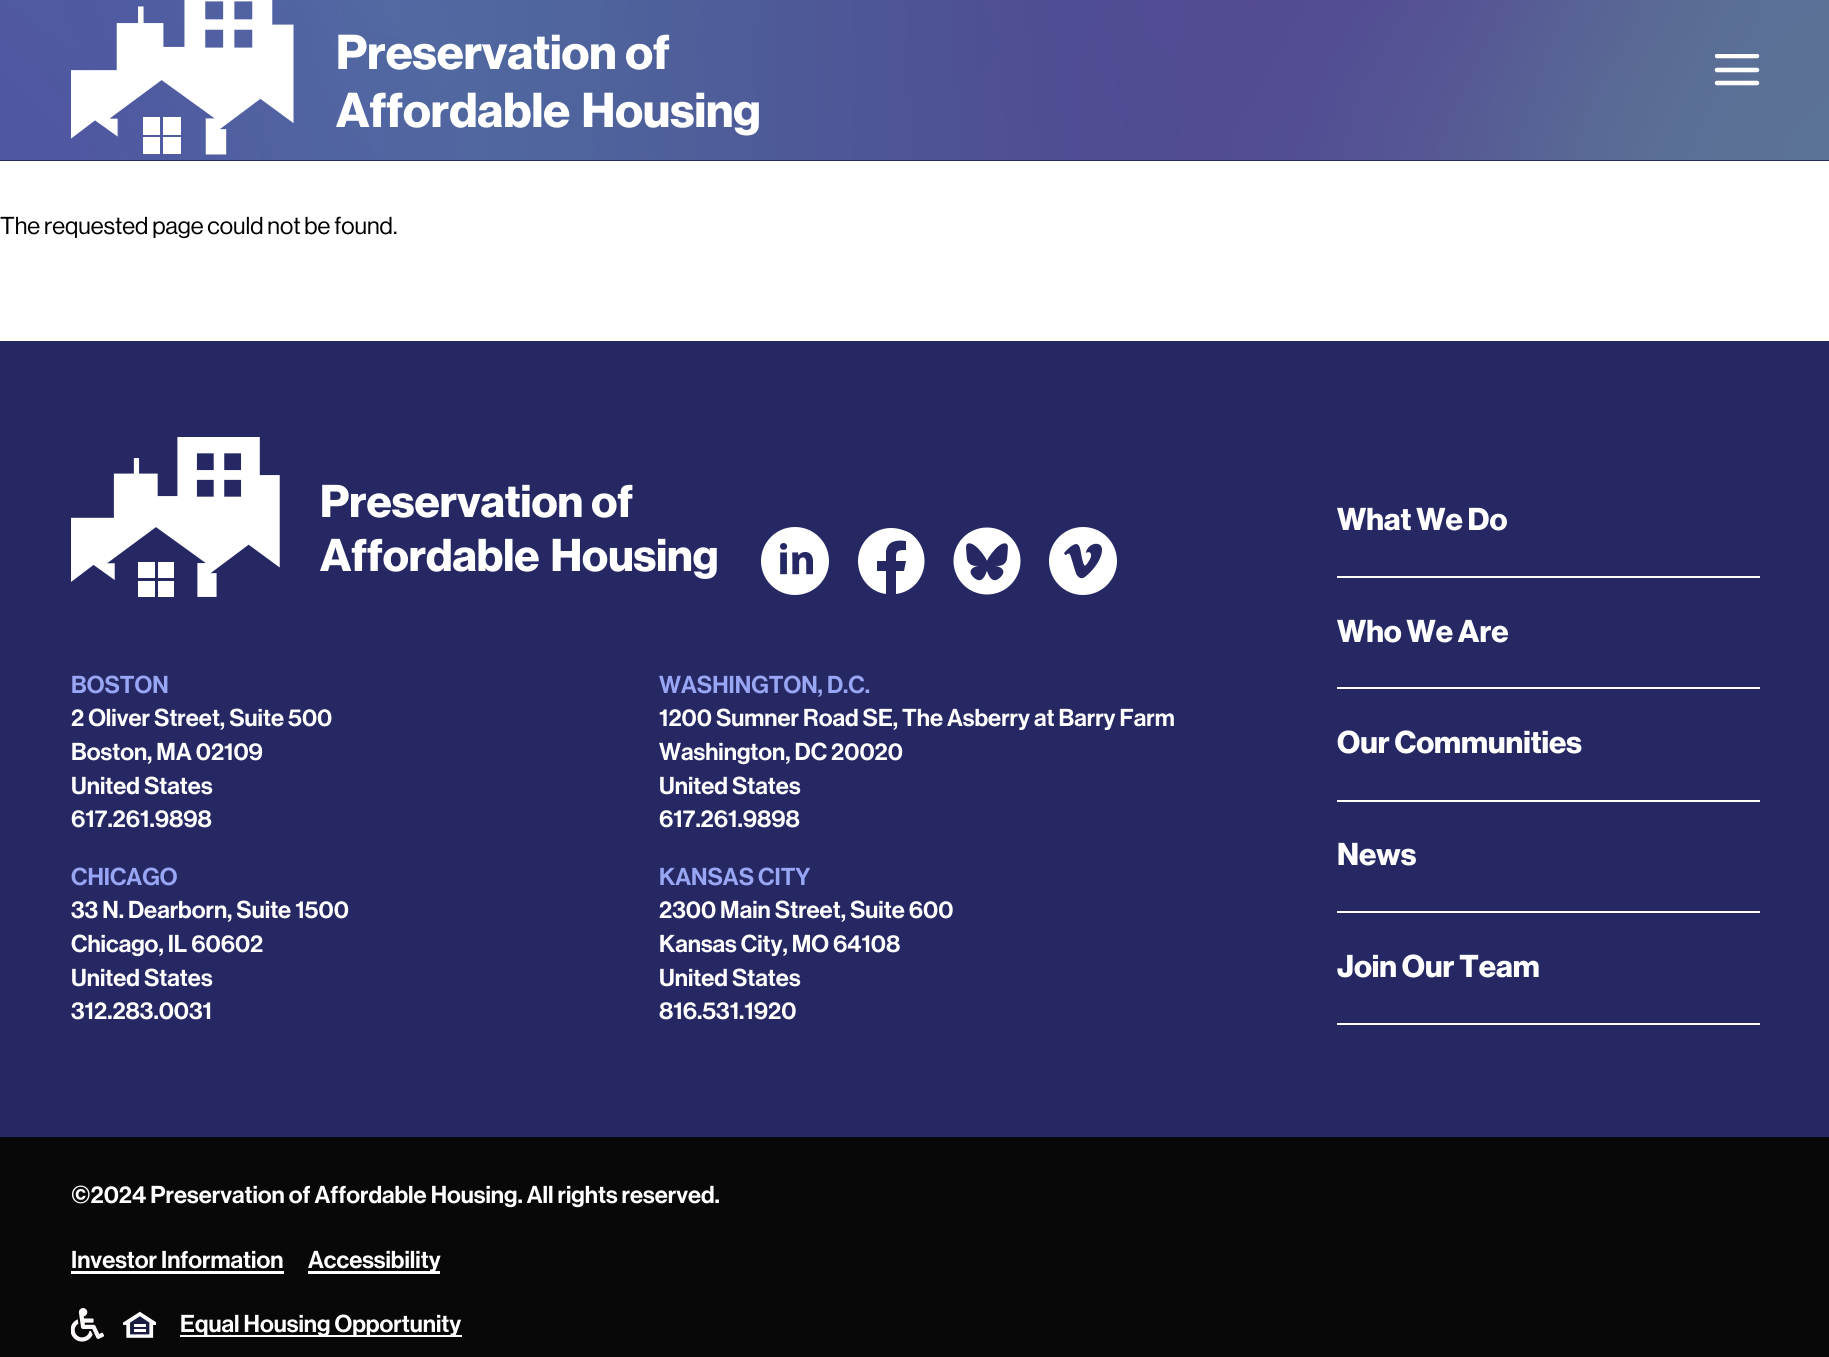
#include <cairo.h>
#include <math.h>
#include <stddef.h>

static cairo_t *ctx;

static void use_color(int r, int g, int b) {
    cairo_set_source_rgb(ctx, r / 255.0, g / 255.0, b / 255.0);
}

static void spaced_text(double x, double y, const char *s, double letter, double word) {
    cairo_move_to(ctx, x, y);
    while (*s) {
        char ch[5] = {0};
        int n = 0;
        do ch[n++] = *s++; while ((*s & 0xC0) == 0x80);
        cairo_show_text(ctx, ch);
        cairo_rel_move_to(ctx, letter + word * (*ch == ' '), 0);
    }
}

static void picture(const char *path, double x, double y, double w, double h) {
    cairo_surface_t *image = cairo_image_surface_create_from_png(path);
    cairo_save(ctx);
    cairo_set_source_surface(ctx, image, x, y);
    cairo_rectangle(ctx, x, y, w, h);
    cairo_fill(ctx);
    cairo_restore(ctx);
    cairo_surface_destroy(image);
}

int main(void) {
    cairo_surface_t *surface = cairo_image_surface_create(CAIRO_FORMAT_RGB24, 1829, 1357);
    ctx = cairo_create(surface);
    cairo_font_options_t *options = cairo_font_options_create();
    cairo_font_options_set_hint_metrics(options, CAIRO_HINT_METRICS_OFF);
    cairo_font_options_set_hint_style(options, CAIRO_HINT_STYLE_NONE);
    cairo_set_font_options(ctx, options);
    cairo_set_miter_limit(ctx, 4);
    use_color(255, 255, 255);
    cairo_paint(ctx);
    use_color(38, 40, 100);
    cairo_rectangle(ctx, 0, 0, 1829, 161);
    cairo_fill(ctx);
    picture("img1.png", 0, 0, 1829, 160);
    picture("img2.png", 71, 0, 223, 155);
    cairo_select_font_face(ctx, "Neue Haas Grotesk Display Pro", CAIRO_FONT_SLANT_NORMAL, CAIRO_FONT_WEIGHT_BOLD);
    cairo_set_font_size(ctx, 48);
    use_color(255, 255, 255);
    spaced_text(336, 69, "Preservation of", 0, 1);
    spaced_text(336, 127, "Affordable Housing", 0, 4);
    cairo_new_path(ctx);
    cairo_move_to(ctx, 1717, 70);
    cairo_line_to(ctx, 1757, 70);
    cairo_set_line_width(ctx, 4.5);
    cairo_set_line_cap(ctx, CAIRO_LINE_CAP_ROUND);
    cairo_set_line_join(ctx, CAIRO_LINE_JOIN_ROUND);
    cairo_stroke(ctx);
    cairo_save(ctx);
    cairo_rectangle(ctx, 1715, 54, 45, 32);
    cairo_clip(ctx);
    cairo_new_path(ctx);
    cairo_move_to(ctx, 1717, 56);
    cairo_line_to(ctx, 1757, 56);
    cairo_stroke(ctx);
    cairo_restore(ctx);
    cairo_new_path(ctx);
    cairo_move_to(ctx, 1717, 83);
    cairo_line_to(ctx, 1757, 83);
    cairo_stroke(ctx);
    cairo_select_font_face(ctx, "Neue Haas Grotesk Display Pro", CAIRO_FONT_SLANT_NORMAL, CAIRO_FONT_WEIGHT_NORMAL);
    cairo_set_font_size(ctx, 24);
    use_color(0, 0, 0);
    cairo_move_to(ctx, 0, 234);
    cairo_show_text(ctx, "The requested page could not be found.");
    use_color(38, 40, 100);
    cairo_rectangle(ctx, 0, 341, 1829, 796);
    cairo_fill(ctx);
    picture("img3.png", 71, 437, 209, 160);
    cairo_select_font_face(ctx, "Neue Haas Grotesk Display Pro", CAIRO_FONT_SLANT_NORMAL, CAIRO_FONT_WEIGHT_BOLD);
    cairo_set_font_size(ctx, 45);
    use_color(255, 255, 255);
    spaced_text(320, 517, "Preservation of", 0, 1);
    spaced_text(320, 571, "Affordable Housing", 0, 4);
    picture("img4.png", 761, 527, 68, 68);
    cairo_new_path(ctx);
    cairo_move_to(ctx, 891, 528);
    cairo_curve_to(ctx, 873, 528, 858, 543, 858, 561);
    cairo_curve_to(ctx, 858, 578, 870, 592, 886, 594);
    cairo_line_to(ctx, 886, 571);
    cairo_line_to(ctx, 877, 571);
    cairo_line_to(ctx, 877, 561);
    cairo_line_to(ctx, 886, 561);
    cairo_line_to(ctx, 886, 551);
    cairo_curve_to(ctx, 888, 540, 898, 540, 906, 541);
    cairo_line_to(ctx, 906, 550);
    cairo_curve_to(ctx, 895, 550, 896, 552, 896, 561);
    cairo_line_to(ctx, 906, 561);
    cairo_line_to(ctx, 904, 571);
    cairo_line_to(ctx, 896, 571);
    cairo_line_to(ctx, 896, 594);
    cairo_curve_to(ctx, 926, 590, 935, 551, 910, 533);
    cairo_curve_to(ctx, 904, 530, 898, 528, 891, 528);
    cairo_close_path(ctx);
    cairo_fill(ctx);
    picture("img5.png", 953, 527, 68, 68);
    picture("img6.png", 1049, 527, 68, 68);
    cairo_select_font_face(ctx, "Neue Haas Grotesk Display Pro Medium", CAIRO_FONT_SLANT_NORMAL, CAIRO_FONT_WEIGHT_NORMAL);
    cairo_set_font_size(ctx, 24);
    use_color(152, 166, 244);
    cairo_move_to(ctx, 71, 693);
    cairo_show_text(ctx, "BOSTON");
    use_color(255, 255, 255);
    cairo_move_to(ctx, 71, 726);
    cairo_show_text(ctx, "2 Oliver Street, Suite 500");
    cairo_move_to(ctx, 71, 760);
    cairo_show_text(ctx, "Boston, MA 02109");
    cairo_move_to(ctx, 71, 794);
    cairo_show_text(ctx, "United States");
    cairo_move_to(ctx, 71, 827);
    cairo_show_text(ctx, "617.261.9898");
    use_color(152, 166, 244);
    cairo_move_to(ctx, 659, 693);
    cairo_show_text(ctx, "WASHINGTON, D.C.");
    use_color(255, 255, 255);
    cairo_move_to(ctx, 659, 726);
    cairo_show_text(ctx, "1200 Sumner Road SE, The Asberry at Barry Farm");
    cairo_move_to(ctx, 659, 760);
    cairo_show_text(ctx, "Washington, DC 20020");
    cairo_move_to(ctx, 659, 794);
    cairo_show_text(ctx, "United States");
    cairo_move_to(ctx, 659, 827);
    cairo_show_text(ctx, "617.261.9898");
    use_color(152, 166, 244);
    cairo_move_to(ctx, 71, 885);
    cairo_show_text(ctx, "CHICAGO");
    use_color(255, 255, 255);
    cairo_move_to(ctx, 71, 918);
    cairo_show_text(ctx, "33 N. Dearborn, Suite 1500");
    cairo_move_to(ctx, 71, 952);
    cairo_show_text(ctx, "Chicago, IL 60602");
    cairo_move_to(ctx, 71, 986);
    cairo_show_text(ctx, "United States");
    cairo_move_to(ctx, 71, 1019);
    cairo_show_text(ctx, "312.283.0031");
    use_color(152, 166, 244);
    cairo_move_to(ctx, 659, 885);
    cairo_show_text(ctx, "KANSAS CITY");
    use_color(255, 255, 255);
    cairo_move_to(ctx, 659, 918);
    cairo_show_text(ctx, "2300 Main Street, Suite 600");
    cairo_move_to(ctx, 659, 952);
    cairo_show_text(ctx, "Kansas City, MO 64108");
    cairo_move_to(ctx, 659, 986);
    cairo_show_text(ctx, "United States");
    cairo_move_to(ctx, 659, 1019);
    cairo_show_text(ctx, "816.531.1920");
    cairo_rectangle(ctx, 1337, 576, 423, 2);
    cairo_fill(ctx);
    cairo_select_font_face(ctx, "Neue Haas Grotesk Display Pro", CAIRO_FONT_SLANT_NORMAL, CAIRO_FONT_WEIGHT_BOLD);
    cairo_set_font_size(ctx, 31);
    cairo_move_to(ctx, 1337, 530);
    cairo_show_text(ctx, "What We Do");
    cairo_rectangle(ctx, 1337, 687, 423, 2);
    cairo_fill(ctx);
    cairo_move_to(ctx, 1337, 642);
    cairo_show_text(ctx, "Who We Are");
    cairo_rectangle(ctx, 1337, 800, 423, 2);
    cairo_fill(ctx);
    cairo_move_to(ctx, 1337, 753);
    cairo_show_text(ctx, "Our Communities");
    cairo_rectangle(ctx, 1337, 911, 423, 2);
    cairo_fill(ctx);
    cairo_move_to(ctx, 1337, 865);
    cairo_show_text(ctx, "News");
    cairo_rectangle(ctx, 1337, 1023, 423, 2);
    cairo_fill(ctx);
    cairo_move_to(ctx, 1337, 977);
    cairo_show_text(ctx, "Join Our Team");
    use_color(8, 8, 8);
    cairo_rectangle(ctx, 0, 1137, 1829, 220);
    cairo_fill(ctx);
    cairo_select_font_face(ctx, "Neue Haas Grotesk Display Pro Medium", CAIRO_FONT_SLANT_NORMAL, CAIRO_FONT_WEIGHT_NORMAL);
    cairo_set_font_size(ctx, 24);
    use_color(255, 255, 255);
    cairo_move_to(ctx, 71, 1203);
    cairo_show_text(ctx, "©2024 Preservation of Affordable Housing. All rights reserved.");
    cairo_move_to(ctx, 71, 1268);
    cairo_show_text(ctx, "Investor Information");
    cairo_rectangle(ctx, 71, 1271, 213, 3);
    cairo_fill(ctx);
    cairo_rectangle(ctx, 308, 1271, 132, 3);
    cairo_fill(ctx);
    cairo_move_to(ctx, 308, 1268);
    cairo_show_text(ctx, "Accessibility");
    picture("img7.png", 71, 1308, 34, 34);
    picture("img8.png", 123, 1311, 33, 27);
    cairo_rectangle(ctx, 180, 1335, 282, 2);
    cairo_fill(ctx);
    cairo_move_to(ctx, 180, 1332);
    cairo_show_text(ctx, "Equal Housing Opportunity");
    cairo_surface_write_to_png(surface, "result.png");
    cairo_font_options_destroy(options);
    cairo_destroy(ctx);
    cairo_surface_destroy(surface);
    return 0;
}
